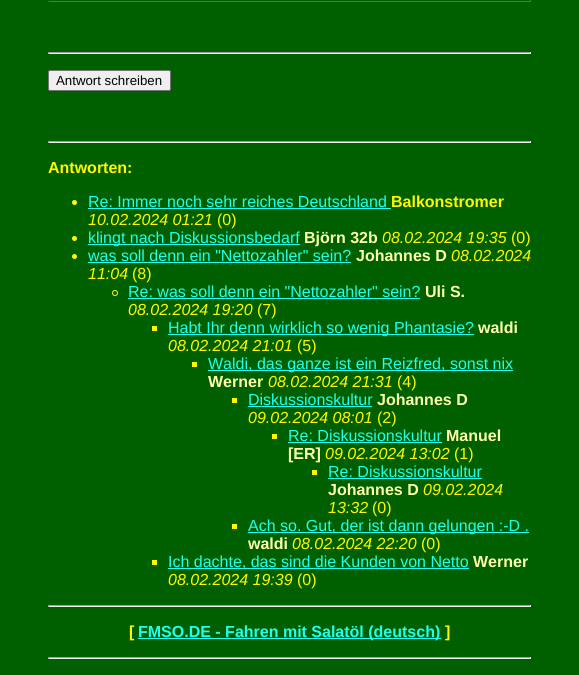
#include <cairo.h>
#include <math.h>
#include <stddef.h>

static cairo_t *ctx;

static void use_color(int r, int g, int b) {
    cairo_set_source_rgb(ctx, r / 255.0, g / 255.0, b / 255.0);
}

static void round_rect(double x, double y, double w, double h, double r) {
    cairo_new_sub_path(ctx);
    cairo_arc(ctx, x + w - r, y + h - r, r, 0, M_PI / 2);
    cairo_arc(ctx, x + r, y + h - r, r, M_PI / 2, M_PI);
    cairo_arc(ctx, x + r, y + r, r, M_PI, 1.5 * M_PI);
    cairo_arc(ctx, x + w - r, y + r, r, 1.5 * M_PI, 2 * M_PI);
    cairo_close_path(ctx);
}

int main(void) {
    cairo_surface_t *surface = cairo_image_surface_create(CAIRO_FORMAT_RGB24, 579, 675);
    ctx = cairo_create(surface);
    cairo_font_options_t *options = cairo_font_options_create();
    cairo_font_options_set_hint_metrics(options, CAIRO_HINT_METRICS_OFF);
    cairo_font_options_set_hint_style(options, CAIRO_HINT_STYLE_NONE);
    cairo_set_font_options(ctx, options);
    cairo_set_miter_limit(ctx, 4);
    use_color(0, 96, 0);
    cairo_paint(ctx);
    use_color(51, 153, 0);
    cairo_rectangle(ctx, 530, 0, 1, 2);
    cairo_fill(ctx);
    cairo_rectangle(ctx, 48, 1, 483, 1);
    cairo_fill(ctx);
    use_color(34, 102, 0);
    cairo_rectangle(ctx, 48, 0, 1, 2);
    cairo_fill(ctx);
    use_color(159, 159, 159);
    cairo_rectangle(ctx, 48, 52, 483, 1);
    cairo_fill(ctx);
    use_color(238, 238, 238);
    cairo_rectangle(ctx, 530, 52, 1, 2);
    cairo_fill(ctx);
    cairo_rectangle(ctx, 48, 53, 483, 1);
    cairo_fill(ctx);
    use_color(159, 159, 159);
    cairo_rectangle(ctx, 48, 52, 1, 2);
    cairo_fill(ctx);
    use_color(239, 239, 239);
    round_rect(48.5, 70.5, 122, 20, 1.5);
    cairo_fill_preserve(ctx);
    use_color(118, 118, 118);
    cairo_set_line_width(ctx, 1);
    cairo_stroke(ctx);
    cairo_select_font_face(ctx, "Liberation Sans", CAIRO_FONT_SLANT_NORMAL, CAIRO_FONT_WEIGHT_NORMAL);
    cairo_set_font_size(ctx, 13.25);
    use_color(0, 0, 0);
    cairo_move_to(ctx, 56, 85);
    cairo_show_text(ctx, "Antwort schreiben");
    use_color(159, 159, 159);
    cairo_rectangle(ctx, 48, 141, 483, 1);
    cairo_fill(ctx);
    use_color(238, 238, 238);
    cairo_rectangle(ctx, 530, 141, 1, 2);
    cairo_fill(ctx);
    cairo_rectangle(ctx, 48, 142, 483, 1);
    cairo_fill(ctx);
    use_color(159, 159, 159);
    cairo_rectangle(ctx, 48, 141, 1, 2);
    cairo_fill(ctx);
    cairo_select_font_face(ctx, "Liberation Sans", CAIRO_FONT_SLANT_NORMAL, CAIRO_FONT_WEIGHT_BOLD);
    cairo_set_font_size(ctx, 16);
    use_color(255, 248, 0);
    cairo_move_to(ctx, 48, 173);
    cairo_show_text(ctx, "Antworten:");
    cairo_new_path(ctx);
    cairo_arc(ctx, 74.5, 202.5, 2.5, 0, 2 * M_PI);
    cairo_fill(ctx);
    cairo_select_font_face(ctx, "Liberation Sans", CAIRO_FONT_SLANT_NORMAL, CAIRO_FONT_WEIGHT_NORMAL);
    use_color(32, 255, 239);
    cairo_move_to(ctx, 88, 207);
    cairo_show_text(ctx, "Re: Immer noch sehr reiches Deutschland");
    cairo_rectangle(ctx, 88, 208, 303, 1);
    cairo_fill(ctx);
    cairo_select_font_face(ctx, "Liberation Sans", CAIRO_FONT_SLANT_NORMAL, CAIRO_FONT_WEIGHT_BOLD);
    use_color(255, 248, 0);
    cairo_move_to(ctx, 391, 207);
    cairo_show_text(ctx, "Balkonstromer");
    cairo_select_font_face(ctx, "Liberation Sans", CAIRO_FONT_SLANT_ITALIC, CAIRO_FONT_WEIGHT_NORMAL);
    cairo_move_to(ctx, 88, 225);
    cairo_show_text(ctx, "10.02.2024 01:21");
    cairo_select_font_face(ctx, "Liberation Sans", CAIRO_FONT_SLANT_NORMAL, CAIRO_FONT_WEIGHT_NORMAL);
    cairo_move_to(ctx, 217, 225);
    cairo_show_text(ctx, "(0)");
    cairo_new_path(ctx);
    cairo_arc(ctx, 74.5, 238.5, 2.5, 0, 2 * M_PI);
    cairo_fill(ctx);
    use_color(32, 255, 239);
    cairo_rectangle(ctx, 88, 244, 212, 1);
    cairo_fill(ctx);
    cairo_move_to(ctx, 88, 243);
    cairo_show_text(ctx, "klingt nach Diskussionsbedarf");
    cairo_select_font_face(ctx, "Liberation Sans", CAIRO_FONT_SLANT_NORMAL, CAIRO_FONT_WEIGHT_BOLD);
    use_color(255, 255, 170);
    cairo_move_to(ctx, 304, 243);
    cairo_show_text(ctx, "Björn 32b");
    cairo_select_font_face(ctx, "Liberation Sans", CAIRO_FONT_SLANT_ITALIC, CAIRO_FONT_WEIGHT_NORMAL);
    use_color(255, 248, 0);
    cairo_move_to(ctx, 382, 243);
    cairo_show_text(ctx, "08.02.2024 19:35");
    cairo_select_font_face(ctx, "Liberation Sans", CAIRO_FONT_SLANT_NORMAL, CAIRO_FONT_WEIGHT_NORMAL);
    cairo_move_to(ctx, 511, 243);
    cairo_show_text(ctx, "(0)");
    cairo_new_path(ctx);
    cairo_arc(ctx, 74.5, 256.5, 2.5, 0, 2 * M_PI);
    cairo_fill(ctx);
    use_color(32, 255, 239);
    cairo_move_to(ctx, 88, 261);
    cairo_show_text(ctx, "was soll denn ein \"Nettozahler\" sein?");
    cairo_rectangle(ctx, 88, 262, 263, 1);
    cairo_fill(ctx);
    cairo_select_font_face(ctx, "Liberation Sans", CAIRO_FONT_SLANT_NORMAL, CAIRO_FONT_WEIGHT_BOLD);
    use_color(255, 255, 170);
    cairo_move_to(ctx, 356, 261);
    cairo_show_text(ctx, "Johannes D");
    cairo_select_font_face(ctx, "Liberation Sans", CAIRO_FONT_SLANT_ITALIC, CAIRO_FONT_WEIGHT_NORMAL);
    use_color(255, 248, 0);
    cairo_move_to(ctx, 451, 261);
    cairo_show_text(ctx, "08.02.2024");
    cairo_move_to(ctx, 88, 279);
    cairo_show_text(ctx, "11:04");
    cairo_select_font_face(ctx, "Liberation Sans", CAIRO_FONT_SLANT_NORMAL, CAIRO_FONT_WEIGHT_NORMAL);
    cairo_move_to(ctx, 132, 279);
    cairo_show_text(ctx, "(8)");
    cairo_new_path(ctx);
    cairo_arc(ctx, 115, 293, 2.5, 0, 2 * M_PI);
    cairo_stroke(ctx);
    use_color(32, 255, 239);
    cairo_move_to(ctx, 128, 297);
    cairo_show_text(ctx, "Re: was soll denn ein \"Nettozahler\" sein?");
    cairo_rectangle(ctx, 128, 298, 292, 1);
    cairo_fill(ctx);
    cairo_select_font_face(ctx, "Liberation Sans", CAIRO_FONT_SLANT_NORMAL, CAIRO_FONT_WEIGHT_BOLD);
    use_color(255, 255, 170);
    cairo_move_to(ctx, 425, 297);
    cairo_show_text(ctx, "Uli S.");
    cairo_select_font_face(ctx, "Liberation Sans", CAIRO_FONT_SLANT_ITALIC, CAIRO_FONT_WEIGHT_NORMAL);
    use_color(255, 248, 0);
    cairo_move_to(ctx, 128, 315);
    cairo_show_text(ctx, "08.02.2024 19:20");
    cairo_select_font_face(ctx, "Liberation Sans", CAIRO_FONT_SLANT_NORMAL, CAIRO_FONT_WEIGHT_NORMAL);
    cairo_move_to(ctx, 257, 315);
    cairo_show_text(ctx, "(7)");
    cairo_rectangle(ctx, 152, 326, 5, 5);
    cairo_fill(ctx);
    use_color(32, 255, 239);
    cairo_rectangle(ctx, 168, 334, 306, 1);
    cairo_fill(ctx);
    cairo_move_to(ctx, 168, 333);
    cairo_show_text(ctx, "Habt Ihr denn wirklich so wenig Phantasie?");
    cairo_select_font_face(ctx, "Liberation Sans", CAIRO_FONT_SLANT_NORMAL, CAIRO_FONT_WEIGHT_BOLD);
    use_color(255, 255, 170);
    cairo_move_to(ctx, 478, 333);
    cairo_show_text(ctx, "waldi");
    cairo_select_font_face(ctx, "Liberation Sans", CAIRO_FONT_SLANT_ITALIC, CAIRO_FONT_WEIGHT_NORMAL);
    use_color(255, 248, 0);
    cairo_move_to(ctx, 168, 351);
    cairo_show_text(ctx, "08.02.2024 21:01");
    cairo_select_font_face(ctx, "Liberation Sans", CAIRO_FONT_SLANT_NORMAL, CAIRO_FONT_WEIGHT_NORMAL);
    cairo_move_to(ctx, 297, 351);
    cairo_show_text(ctx, "(5)");
    cairo_rectangle(ctx, 192, 362, 5, 5);
    cairo_fill(ctx);
    use_color(32, 255, 239);
    cairo_rectangle(ctx, 208, 370, 305, 1);
    cairo_fill(ctx);
    cairo_move_to(ctx, 208, 369);
    cairo_show_text(ctx, "Waldi, das ganze ist ein Reizfred, sonst nix");
    cairo_select_font_face(ctx, "Liberation Sans", CAIRO_FONT_SLANT_NORMAL, CAIRO_FONT_WEIGHT_BOLD);
    use_color(255, 255, 170);
    cairo_move_to(ctx, 208, 387);
    cairo_show_text(ctx, "Werner");
    cairo_select_font_face(ctx, "Liberation Sans", CAIRO_FONT_SLANT_ITALIC, CAIRO_FONT_WEIGHT_NORMAL);
    use_color(255, 248, 0);
    cairo_move_to(ctx, 268, 387);
    cairo_show_text(ctx, "08.02.2024 21:31");
    cairo_select_font_face(ctx, "Liberation Sans", CAIRO_FONT_SLANT_NORMAL, CAIRO_FONT_WEIGHT_NORMAL);
    cairo_move_to(ctx, 397, 387);
    cairo_show_text(ctx, "(4)");
    cairo_rectangle(ctx, 232, 398, 5, 5);
    cairo_fill(ctx);
    use_color(32, 255, 239);
    cairo_move_to(ctx, 248, 405);
    cairo_show_text(ctx, "Diskussionskultur");
    cairo_rectangle(ctx, 248, 406, 124, 1);
    cairo_fill(ctx);
    cairo_select_font_face(ctx, "Liberation Sans", CAIRO_FONT_SLANT_NORMAL, CAIRO_FONT_WEIGHT_BOLD);
    use_color(255, 255, 170);
    cairo_move_to(ctx, 377, 405);
    cairo_show_text(ctx, "Johannes D");
    cairo_select_font_face(ctx, "Liberation Sans", CAIRO_FONT_SLANT_ITALIC, CAIRO_FONT_WEIGHT_NORMAL);
    use_color(255, 248, 0);
    cairo_move_to(ctx, 248, 423);
    cairo_show_text(ctx, "09.02.2024 08:01");
    cairo_select_font_face(ctx, "Liberation Sans", CAIRO_FONT_SLANT_NORMAL, CAIRO_FONT_WEIGHT_NORMAL);
    cairo_move_to(ctx, 377, 423);
    cairo_show_text(ctx, "(2)");
    cairo_rectangle(ctx, 272, 434, 5, 5);
    cairo_fill(ctx);
    use_color(32, 255, 239);
    cairo_move_to(ctx, 288, 441);
    cairo_show_text(ctx, "Re: Diskussionskultur");
    cairo_rectangle(ctx, 288, 442, 154, 1);
    cairo_fill(ctx);
    cairo_select_font_face(ctx, "Liberation Sans", CAIRO_FONT_SLANT_NORMAL, CAIRO_FONT_WEIGHT_BOLD);
    use_color(255, 255, 170);
    cairo_move_to(ctx, 446, 441);
    cairo_show_text(ctx, "Manuel");
    cairo_move_to(ctx, 288, 459);
    cairo_show_text(ctx, "[ER]");
    cairo_select_font_face(ctx, "Liberation Sans", CAIRO_FONT_SLANT_ITALIC, CAIRO_FONT_WEIGHT_NORMAL);
    use_color(255, 248, 0);
    cairo_move_to(ctx, 325, 459);
    cairo_show_text(ctx, "09.02.2024 13:02");
    cairo_select_font_face(ctx, "Liberation Sans", CAIRO_FONT_SLANT_NORMAL, CAIRO_FONT_WEIGHT_NORMAL);
    cairo_move_to(ctx, 454, 459);
    cairo_show_text(ctx, "(1)");
    cairo_rectangle(ctx, 312, 470, 5, 5);
    cairo_fill(ctx);
    use_color(32, 255, 239);
    cairo_move_to(ctx, 328, 477);
    cairo_show_text(ctx, "Re: Diskussionskultur");
    cairo_rectangle(ctx, 328, 478, 154, 1);
    cairo_fill(ctx);
    cairo_select_font_face(ctx, "Liberation Sans", CAIRO_FONT_SLANT_NORMAL, CAIRO_FONT_WEIGHT_BOLD);
    use_color(255, 255, 170);
    cairo_move_to(ctx, 328, 495);
    cairo_show_text(ctx, "Johannes D");
    cairo_select_font_face(ctx, "Liberation Sans", CAIRO_FONT_SLANT_ITALIC, CAIRO_FONT_WEIGHT_NORMAL);
    use_color(255, 248, 0);
    cairo_move_to(ctx, 423, 495);
    cairo_show_text(ctx, "09.02.2024");
    cairo_move_to(ctx, 328, 513);
    cairo_show_text(ctx, "13:32");
    cairo_select_font_face(ctx, "Liberation Sans", CAIRO_FONT_SLANT_NORMAL, CAIRO_FONT_WEIGHT_NORMAL);
    cairo_move_to(ctx, 372, 513);
    cairo_show_text(ctx, "(0)");
    cairo_rectangle(ctx, 232, 524, 5, 5);
    cairo_fill(ctx);
    use_color(32, 255, 239);
    cairo_rectangle(ctx, 248, 532, 281, 1);
    cairo_fill(ctx);
    cairo_move_to(ctx, 248, 531);
    cairo_show_text(ctx, "Ach so. Gut, der ist dann gelungen :-D .");
    cairo_select_font_face(ctx, "Liberation Sans", CAIRO_FONT_SLANT_NORMAL, CAIRO_FONT_WEIGHT_BOLD);
    use_color(255, 255, 170);
    cairo_move_to(ctx, 248, 549);
    cairo_show_text(ctx, "waldi");
    cairo_select_font_face(ctx, "Liberation Sans", CAIRO_FONT_SLANT_ITALIC, CAIRO_FONT_WEIGHT_NORMAL);
    use_color(255, 248, 0);
    cairo_move_to(ctx, 292, 549);
    cairo_show_text(ctx, "08.02.2024 22:20");
    cairo_select_font_face(ctx, "Liberation Sans", CAIRO_FONT_SLANT_NORMAL, CAIRO_FONT_WEIGHT_NORMAL);
    cairo_move_to(ctx, 421, 549);
    cairo_show_text(ctx, "(0)");
    cairo_rectangle(ctx, 152, 560, 5, 5);
    cairo_fill(ctx);
    use_color(32, 255, 239);
    cairo_rectangle(ctx, 168, 568, 301, 1);
    cairo_fill(ctx);
    cairo_move_to(ctx, 168, 567);
    cairo_show_text(ctx, "Ich dachte, das sind die Kunden von Netto");
    cairo_select_font_face(ctx, "Liberation Sans", CAIRO_FONT_SLANT_NORMAL, CAIRO_FONT_WEIGHT_BOLD);
    use_color(255, 255, 170);
    cairo_move_to(ctx, 473, 567);
    cairo_show_text(ctx, "Werner");
    cairo_select_font_face(ctx, "Liberation Sans", CAIRO_FONT_SLANT_ITALIC, CAIRO_FONT_WEIGHT_NORMAL);
    use_color(255, 248, 0);
    cairo_move_to(ctx, 168, 585);
    cairo_show_text(ctx, "08.02.2024 19:39");
    cairo_select_font_face(ctx, "Liberation Sans", CAIRO_FONT_SLANT_NORMAL, CAIRO_FONT_WEIGHT_NORMAL);
    cairo_move_to(ctx, 297, 585);
    cairo_show_text(ctx, "(0)");
    use_color(159, 159, 159);
    cairo_rectangle(ctx, 48, 605, 483, 1);
    cairo_fill(ctx);
    use_color(238, 238, 238);
    cairo_rectangle(ctx, 530, 605, 1, 2);
    cairo_fill(ctx);
    cairo_rectangle(ctx, 48, 606, 483, 1);
    cairo_fill(ctx);
    use_color(159, 159, 159);
    cairo_rectangle(ctx, 48, 605, 1, 2);
    cairo_fill(ctx);
    cairo_select_font_face(ctx, "Liberation Sans", CAIRO_FONT_SLANT_NORMAL, CAIRO_FONT_WEIGHT_BOLD);
    use_color(255, 248, 0);
    cairo_move_to(ctx, 129, 637);
    cairo_show_text(ctx, "[");
    use_color(32, 255, 239);
    cairo_rectangle(ctx, 138, 638, 303, 1);
    cairo_fill(ctx);
    cairo_move_to(ctx, 138, 637);
    cairo_show_text(ctx, "FMSO.DE - Fahren mit Salatöl (deutsch)");
    use_color(255, 248, 0);
    cairo_move_to(ctx, 445, 637);
    cairo_show_text(ctx, "]");
    use_color(159, 159, 159);
    cairo_rectangle(ctx, 48, 657, 483, 1);
    cairo_fill(ctx);
    use_color(238, 238, 238);
    cairo_rectangle(ctx, 530, 657, 1, 2);
    cairo_fill(ctx);
    cairo_rectangle(ctx, 48, 658, 483, 1);
    cairo_fill(ctx);
    use_color(159, 159, 159);
    cairo_rectangle(ctx, 48, 657, 1, 2);
    cairo_fill(ctx);
    cairo_surface_write_to_png(surface, "result.png");
    cairo_font_options_destroy(options);
    cairo_destroy(ctx);
    cairo_surface_destroy(surface);
    return 0;
}
